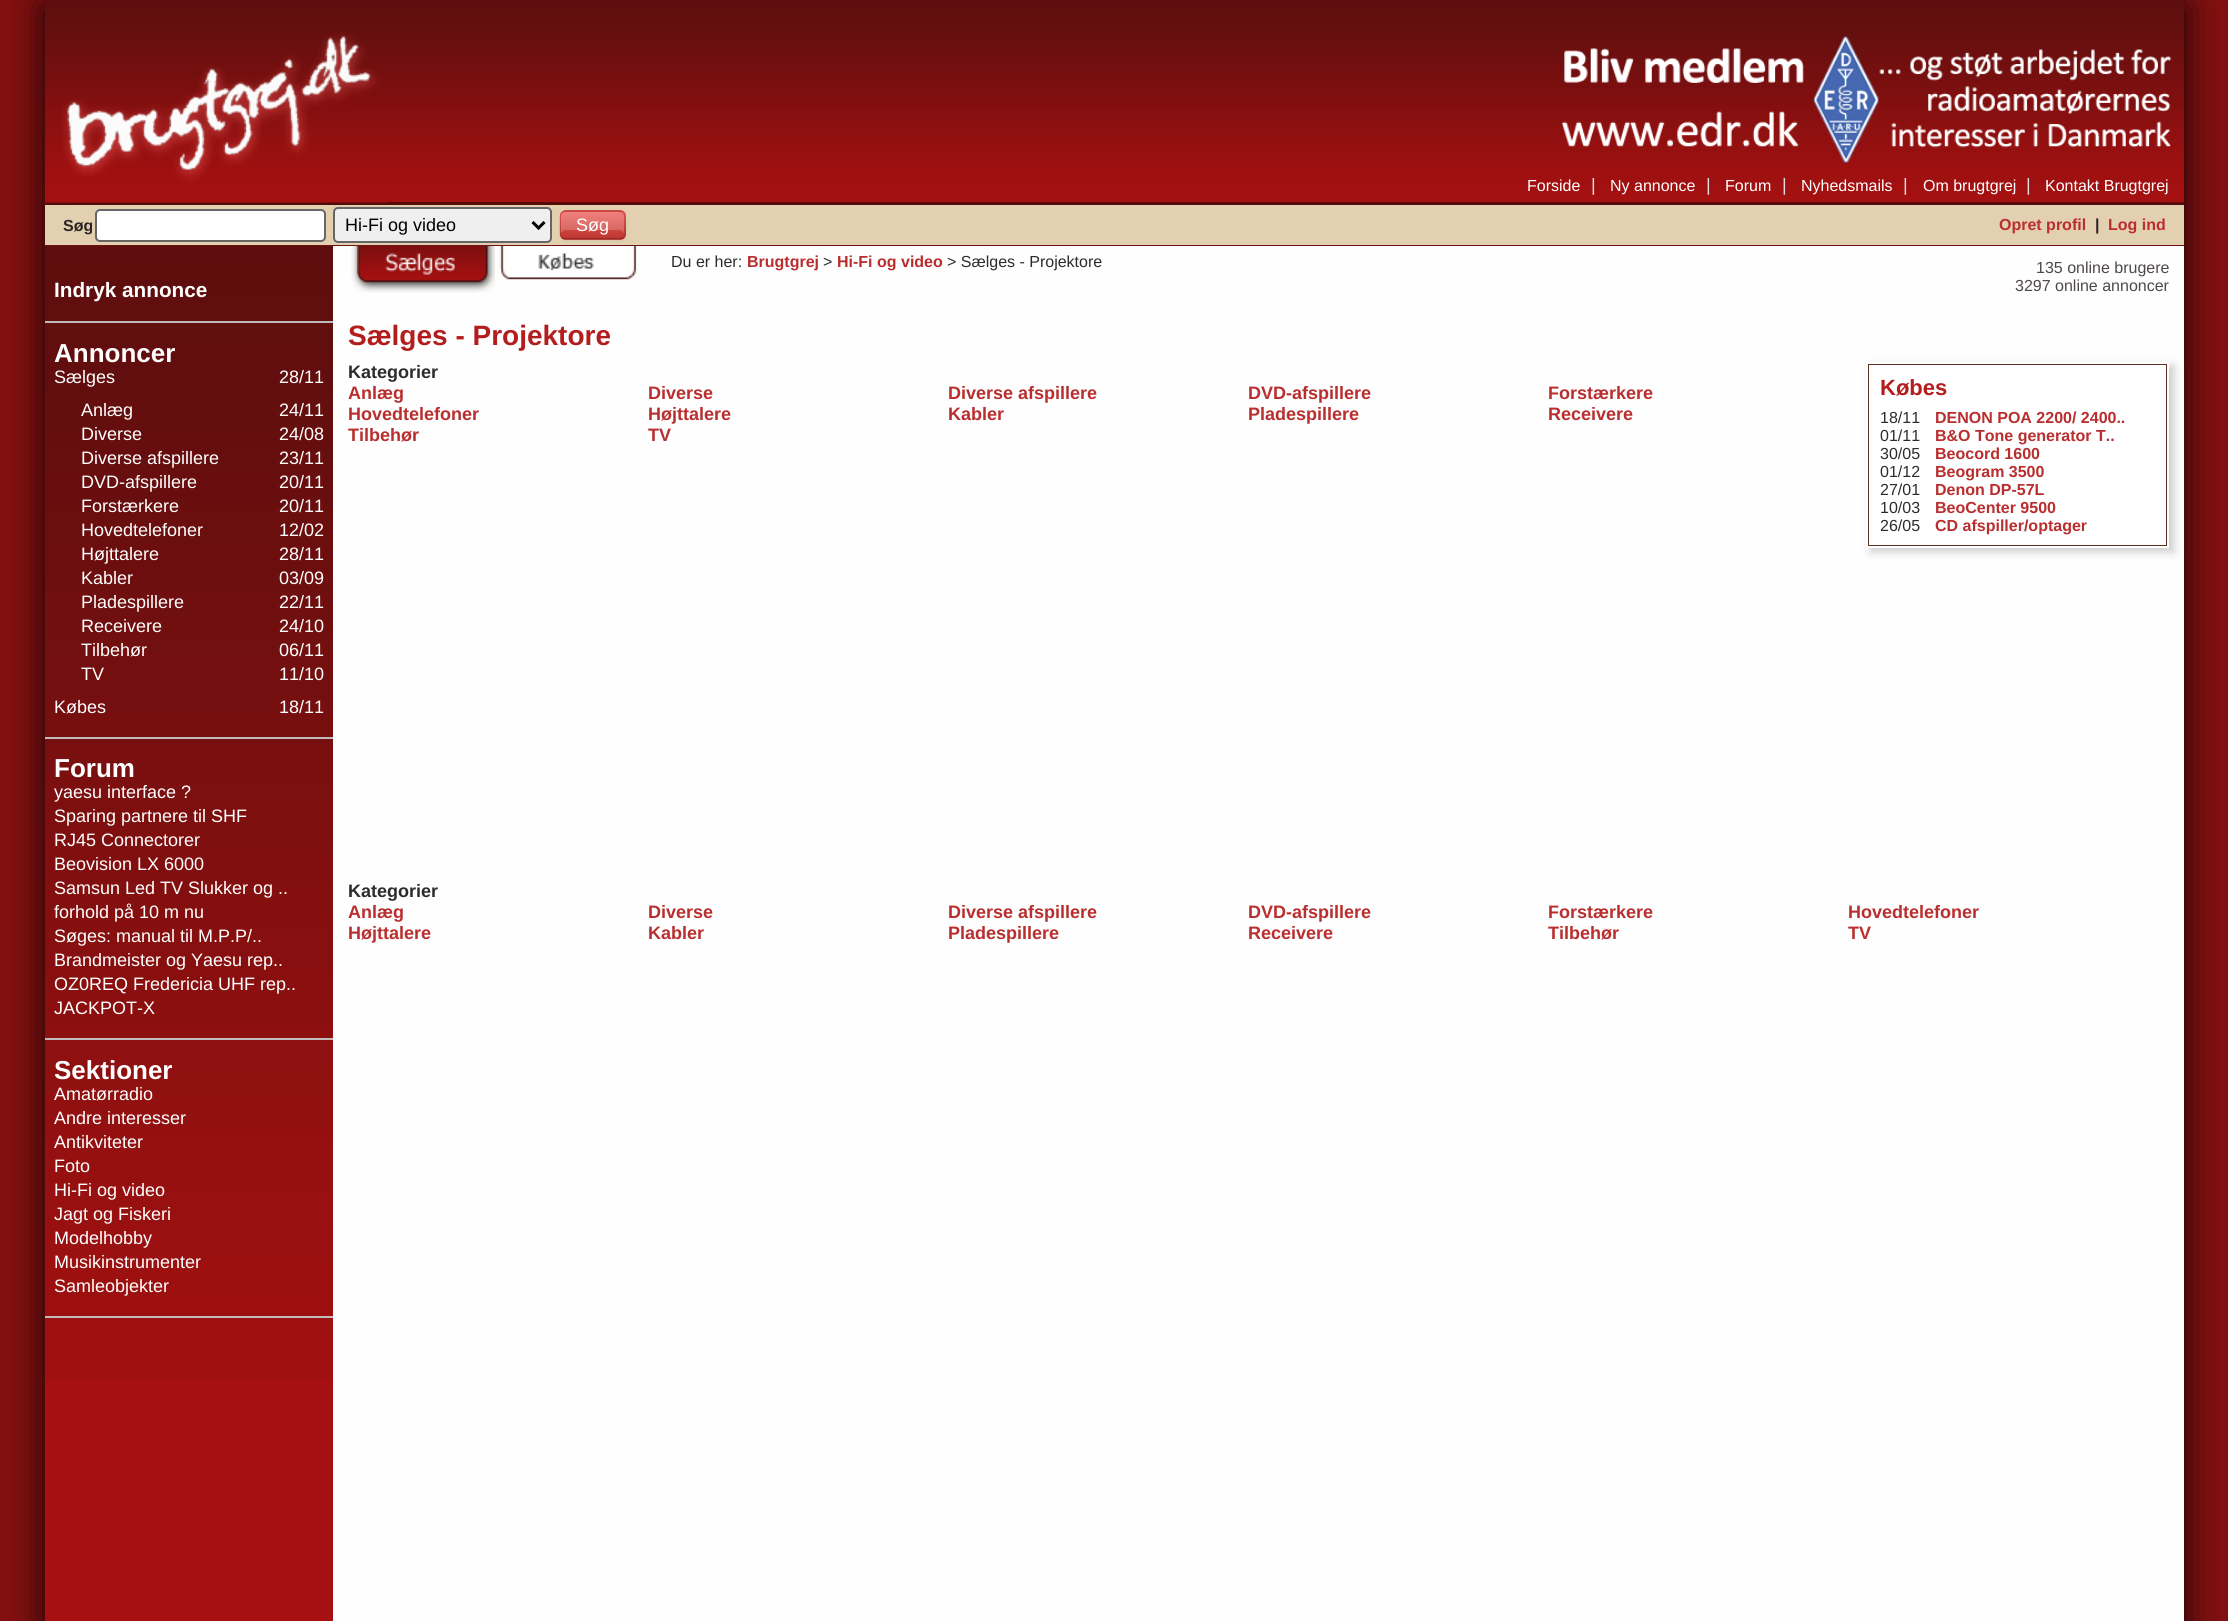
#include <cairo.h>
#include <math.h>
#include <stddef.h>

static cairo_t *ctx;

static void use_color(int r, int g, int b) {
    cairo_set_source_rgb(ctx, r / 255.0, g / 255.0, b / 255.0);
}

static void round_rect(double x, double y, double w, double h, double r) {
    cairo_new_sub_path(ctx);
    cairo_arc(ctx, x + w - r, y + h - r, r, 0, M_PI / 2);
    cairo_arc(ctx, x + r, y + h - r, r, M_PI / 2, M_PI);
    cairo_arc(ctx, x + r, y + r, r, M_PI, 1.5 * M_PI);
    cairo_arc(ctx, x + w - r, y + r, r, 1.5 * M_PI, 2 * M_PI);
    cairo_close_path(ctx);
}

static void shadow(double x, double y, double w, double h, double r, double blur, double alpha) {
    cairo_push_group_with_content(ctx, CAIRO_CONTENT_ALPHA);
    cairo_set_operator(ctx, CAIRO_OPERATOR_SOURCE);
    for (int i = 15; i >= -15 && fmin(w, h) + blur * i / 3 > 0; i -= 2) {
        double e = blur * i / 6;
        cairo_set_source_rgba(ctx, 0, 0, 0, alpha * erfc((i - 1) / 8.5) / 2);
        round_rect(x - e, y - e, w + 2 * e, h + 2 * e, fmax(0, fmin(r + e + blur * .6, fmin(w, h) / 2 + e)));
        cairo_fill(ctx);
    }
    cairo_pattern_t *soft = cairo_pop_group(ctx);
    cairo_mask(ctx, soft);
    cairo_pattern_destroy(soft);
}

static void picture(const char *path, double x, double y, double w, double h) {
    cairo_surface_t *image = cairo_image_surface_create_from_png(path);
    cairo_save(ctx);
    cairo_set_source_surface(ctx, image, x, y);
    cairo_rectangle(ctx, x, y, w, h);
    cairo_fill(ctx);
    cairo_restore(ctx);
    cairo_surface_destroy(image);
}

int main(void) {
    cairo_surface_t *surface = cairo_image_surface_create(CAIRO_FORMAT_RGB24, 2228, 1621);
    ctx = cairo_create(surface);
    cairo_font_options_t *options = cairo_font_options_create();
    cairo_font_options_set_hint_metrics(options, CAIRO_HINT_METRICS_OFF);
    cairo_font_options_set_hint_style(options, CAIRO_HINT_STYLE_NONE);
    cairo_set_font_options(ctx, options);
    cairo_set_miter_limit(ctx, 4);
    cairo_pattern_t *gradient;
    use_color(132, 16, 16);
    cairo_paint(ctx);
    use_color(0, 0, 0);
    shadow(45, 6, 2139, 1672, 0, 19, 0.85);
    picture("img1.png", 45, 0, 2139, 203);
    picture("img2.png", 45, 32, 344, 171);
    picture("img3.png", 1561, 36, 611, 127);
    cairo_select_font_face(ctx, "Liberation Sans", CAIRO_FONT_SLANT_NORMAL, CAIRO_FONT_WEIGHT_NORMAL);
    cairo_set_font_size(ctx, 16);
    use_color(255, 255, 255);
    cairo_move_to(ctx, 1527, 191);
    cairo_show_text(ctx, "Forside");
    cairo_set_font_size(ctx, 18);
    use_color(221, 221, 221);
    cairo_move_to(ctx, 1591, 191);
    cairo_show_text(ctx, "|");
    cairo_set_font_size(ctx, 16);
    use_color(255, 255, 255);
    cairo_move_to(ctx, 1610, 191);
    cairo_show_text(ctx, "Ny annonce");
    cairo_set_font_size(ctx, 18);
    use_color(221, 221, 221);
    cairo_move_to(ctx, 1706, 191);
    cairo_show_text(ctx, "|");
    cairo_set_font_size(ctx, 16);
    use_color(255, 255, 255);
    cairo_move_to(ctx, 1725, 191);
    cairo_show_text(ctx, "Forum");
    cairo_set_font_size(ctx, 18);
    use_color(221, 221, 221);
    cairo_move_to(ctx, 1782, 191);
    cairo_show_text(ctx, "|");
    cairo_set_font_size(ctx, 16);
    use_color(255, 255, 255);
    cairo_move_to(ctx, 1801, 191);
    cairo_show_text(ctx, "Nyhedsmails");
    cairo_set_font_size(ctx, 18);
    use_color(221, 221, 221);
    cairo_move_to(ctx, 1903, 191);
    cairo_show_text(ctx, "|");
    cairo_set_font_size(ctx, 16);
    use_color(255, 255, 255);
    cairo_move_to(ctx, 1923, 191);
    cairo_show_text(ctx, "Om brugtgrej");
    cairo_set_font_size(ctx, 18);
    use_color(221, 221, 221);
    cairo_move_to(ctx, 2026, 191);
    cairo_show_text(ctx, "|");
    cairo_set_font_size(ctx, 16);
    use_color(255, 255, 255);
    cairo_move_to(ctx, 2045, 191);
    cairo_show_text(ctx, "Kontakt Brugtgrej");
    use_color(227, 208, 176);
    cairo_rectangle(ctx, 45, 205, 2139, 40);
    cairo_fill(ctx);
    use_color(82, 12, 12);
    cairo_rectangle(ctx, 45, 203, 2139, 2);
    cairo_fill(ctx);
    use_color(107, 18, 18);
    cairo_rectangle(ctx, 45, 245, 2139, 1);
    cairo_fill(ctx);
    cairo_select_font_face(ctx, "Liberation Sans", CAIRO_FONT_SLANT_NORMAL, CAIRO_FONT_WEIGHT_BOLD);
    use_color(43, 38, 38);
    cairo_move_to(ctx, 63, 231);
    cairo_show_text(ctx, "Søg");
    use_color(255, 255, 255);
    round_rect(96, 210, 229, 31, 4);
    cairo_fill_preserve(ctx);
    use_color(102, 102, 102);
    cairo_stroke(ctx);
    use_color(239, 239, 239);
    round_rect(334, 208, 217, 34, 4);
    cairo_fill_preserve(ctx);
    use_color(102, 102, 102);
    cairo_stroke(ctx);
    cairo_new_path(ctx);
    cairo_move_to(ctx, 532.5, 222);
    cairo_line_to(ctx, 538.5, 228);
    cairo_line_to(ctx, 544.5, 222);
    use_color(0, 0, 0);
    cairo_set_line_width(ctx, 3);
    cairo_stroke(ctx);
    cairo_select_font_face(ctx, "Liberation Sans", CAIRO_FONT_SLANT_NORMAL, CAIRO_FONT_WEIGHT_NORMAL);
    cairo_set_font_size(ctx, 18);
    cairo_move_to(ctx, 345, 231);
    cairo_show_text(ctx, "Hi-Fi og video");
    use_color(254, 254, 254);
    cairo_rectangle(ctx, 333, 246, 1851, 1375);
    cairo_fill(ctx);
    picture("img6.png", 499, 246, 138, 34);
    use_color(0, 0, 0);
    shadow(560, 212, 66, 30, 6, 1.5, 0.05);
    use_color(218, 79, 73);
    round_rect(560, 210, 66, 30, 6);
    cairo_fill(ctx);
    cairo_save(ctx);
    round_rect(560, 210, 66, 30, 6);
    cairo_clip(ctx);
    gradient = cairo_pattern_create_linear(593, 212, 593, 239);
    cairo_pattern_add_color_stop_rgba(gradient, 0, 0.933, 0.373, 0.357, 1);
    cairo_pattern_add_color_stop_rgba(gradient, 1, 0.741, 0.212, 0.184, 1);
    cairo_set_source(ctx, gradient);
    cairo_pattern_destroy(gradient);
    cairo_rectangle(ctx, 560, 212, 66, 27);
    cairo_fill(ctx);
    cairo_restore(ctx);
    cairo_set_source_rgba(ctx, 1, 1, 1, 0.2);
    cairo_new_path(ctx);
    cairo_move_to(ctx, 566, 230);
    cairo_line_to(ctx, 620, 230);
    cairo_curve_to(ctx, 622, 230, 624, 232, 624, 234);
    cairo_line_to(ctx, 624, 217);
    cairo_curve_to(ctx, 624, 214, 622, 212, 619, 212);
    cairo_line_to(ctx, 566, 212);
    cairo_curve_to(ctx, 563, 212, 561, 214, 561, 217);
    cairo_line_to(ctx, 561, 234);
    cairo_curve_to(ctx, 561, 232, 563, 230, 566, 230);
    cairo_close_path(ctx);
    cairo_fill(ctx);
    cairo_new_path(ctx);
    cairo_move_to(ctx, 623, 237.5);
    cairo_curve_to(ctx, 622, 238.5, 621, 239, 619.5, 239);
    cairo_line_to(ctx, 565.5, 239);
    cairo_curve_to(ctx, 564, 239, 563, 238.5, 562, 237.5);
    cairo_set_source_rgba(ctx, 0, 0, 0, 0.25);
    cairo_set_line_width(ctx, 1.5);
    cairo_stroke(ctx);
    cairo_new_path(ctx);
    cairo_move_to(ctx, 562, 237.5);
    cairo_curve_to(ctx, 559, 235, 560, 228.5, 560, 225);
    cairo_curve_to(ctx, 560, 210.5, 559.5, 211, 574.5, 211);
    cairo_line_to(ctx, 610.5, 211);
    cairo_curve_to(ctx, 625.5, 211, 625, 210.5, 625, 225);
    cairo_curve_to(ctx, 625, 228.5, 626, 235, 623, 237.5);
    cairo_set_source_rgba(ctx, 0, 0, 0, 0.1);
    cairo_stroke(ctx);
    use_color(255, 255, 255);
    cairo_move_to(ctx, 576, 231);
    cairo_show_text(ctx, "Søg");
    cairo_select_font_face(ctx, "Liberation Sans", CAIRO_FONT_SLANT_NORMAL, CAIRO_FONT_WEIGHT_BOLD);
    cairo_set_font_size(ctx, 16);
    use_color(185, 46, 46);
    cairo_move_to(ctx, 1999, 230);
    cairo_show_text(ctx, "Opret profil");
    use_color(43, 38, 38);
    cairo_move_to(ctx, 2095, 230);
    cairo_show_text(ctx, "|");
    use_color(185, 46, 46);
    cairo_move_to(ctx, 2108, 230);
    cairo_show_text(ctx, "Log ind");
    use_color(166, 16, 16);
    cairo_rectangle(ctx, 45, 1379, 288, 242);
    cairo_fill(ctx);
    picture("img4.png", 45, 246, 288, 1133);
    cairo_set_font_size(ctx, 20.75);
    use_color(255, 255, 255);
    cairo_move_to(ctx, 54, 297);
    cairo_show_text(ctx, "Indryk annonce");
    use_color(191, 187, 187);
    cairo_rectangle(ctx, 45, 321, 288, 2);
    cairo_fill(ctx);
    cairo_set_font_size(ctx, 26);
    use_color(255, 255, 255);
    cairo_move_to(ctx, 54, 362);
    cairo_show_text(ctx, "Annoncer");
    cairo_select_font_face(ctx, "Liberation Sans", CAIRO_FONT_SLANT_NORMAL, CAIRO_FONT_WEIGHT_NORMAL);
    cairo_set_font_size(ctx, 18);
    cairo_move_to(ctx, 54, 383);
    cairo_show_text(ctx, "Sælges");
    cairo_move_to(ctx, 279, 383);
    cairo_show_text(ctx, "28/11");
    cairo_move_to(ctx, 81, 416);
    cairo_show_text(ctx, "Anlæg");
    cairo_move_to(ctx, 279, 416);
    cairo_show_text(ctx, "24/11");
    cairo_move_to(ctx, 81, 440);
    cairo_show_text(ctx, "Diverse");
    cairo_move_to(ctx, 279, 440);
    cairo_show_text(ctx, "24/08");
    cairo_move_to(ctx, 81, 464);
    cairo_show_text(ctx, "Diverse afspillere");
    cairo_move_to(ctx, 279, 464);
    cairo_show_text(ctx, "23/11");
    cairo_move_to(ctx, 81, 488);
    cairo_show_text(ctx, "DVD-afspillere");
    cairo_move_to(ctx, 279, 488);
    cairo_show_text(ctx, "20/11");
    cairo_move_to(ctx, 81, 512);
    cairo_show_text(ctx, "Forstærkere");
    cairo_move_to(ctx, 279, 512);
    cairo_show_text(ctx, "20/11");
    cairo_move_to(ctx, 81, 536);
    cairo_show_text(ctx, "Hovedtelefoner");
    cairo_move_to(ctx, 279, 536);
    cairo_show_text(ctx, "12/02");
    cairo_move_to(ctx, 81, 560);
    cairo_show_text(ctx, "Højttalere");
    cairo_move_to(ctx, 279, 560);
    cairo_show_text(ctx, "28/11");
    cairo_move_to(ctx, 81, 584);
    cairo_show_text(ctx, "Kabler");
    cairo_move_to(ctx, 279, 584);
    cairo_show_text(ctx, "03/09");
    cairo_move_to(ctx, 81, 608);
    cairo_show_text(ctx, "Pladespillere");
    cairo_move_to(ctx, 279, 608);
    cairo_show_text(ctx, "22/11");
    cairo_move_to(ctx, 81, 632);
    cairo_show_text(ctx, "Receivere");
    cairo_move_to(ctx, 279, 632);
    cairo_show_text(ctx, "24/10");
    cairo_move_to(ctx, 81, 656);
    cairo_show_text(ctx, "Tilbehør");
    cairo_move_to(ctx, 279, 656);
    cairo_show_text(ctx, "06/11");
    cairo_move_to(ctx, 81, 680);
    cairo_show_text(ctx, "TV");
    cairo_move_to(ctx, 279, 680);
    cairo_show_text(ctx, "11/10");
    cairo_move_to(ctx, 54, 713);
    cairo_show_text(ctx, "Købes");
    cairo_move_to(ctx, 279, 713);
    cairo_show_text(ctx, "18/11");
    use_color(191, 187, 187);
    cairo_rectangle(ctx, 45, 737, 288, 2);
    cairo_fill(ctx);
    cairo_select_font_face(ctx, "Liberation Sans", CAIRO_FONT_SLANT_NORMAL, CAIRO_FONT_WEIGHT_BOLD);
    cairo_set_font_size(ctx, 26);
    use_color(255, 255, 255);
    cairo_move_to(ctx, 54, 777);
    cairo_show_text(ctx, "Forum");
    cairo_select_font_face(ctx, "Liberation Sans", CAIRO_FONT_SLANT_NORMAL, CAIRO_FONT_WEIGHT_NORMAL);
    cairo_set_font_size(ctx, 18);
    cairo_move_to(ctx, 54, 798);
    cairo_show_text(ctx, "yaesu interface ?");
    cairo_move_to(ctx, 54, 822);
    cairo_show_text(ctx, "Sparing partnere til SHF");
    cairo_move_to(ctx, 54, 846);
    cairo_show_text(ctx, "RJ45 Connectorer");
    cairo_move_to(ctx, 54, 870);
    cairo_show_text(ctx, "Beovision LX 6000");
    cairo_move_to(ctx, 54, 894);
    cairo_show_text(ctx, "Samsun Led TV Slukker og ..");
    cairo_move_to(ctx, 54, 918);
    cairo_show_text(ctx, "forhold på 10 m nu");
    cairo_move_to(ctx, 54, 942);
    cairo_show_text(ctx, "Søges: manual til M.P.P/..");
    cairo_move_to(ctx, 54, 966);
    cairo_show_text(ctx, "Brandmeister og Yaesu rep..");
    cairo_move_to(ctx, 54, 990);
    cairo_show_text(ctx, "OZ0REQ Fredericia UHF rep..");
    cairo_move_to(ctx, 54, 1014);
    cairo_show_text(ctx, "JACKPOT-X");
    use_color(191, 187, 187);
    cairo_rectangle(ctx, 45, 1038, 288, 2);
    cairo_fill(ctx);
    cairo_select_font_face(ctx, "Liberation Sans", CAIRO_FONT_SLANT_NORMAL, CAIRO_FONT_WEIGHT_BOLD);
    cairo_set_font_size(ctx, 26);
    use_color(255, 255, 255);
    cairo_move_to(ctx, 54, 1079);
    cairo_show_text(ctx, "Sektioner");
    cairo_select_font_face(ctx, "Liberation Sans", CAIRO_FONT_SLANT_NORMAL, CAIRO_FONT_WEIGHT_NORMAL);
    cairo_set_font_size(ctx, 18);
    cairo_move_to(ctx, 54, 1100);
    cairo_show_text(ctx, "Amatørradio");
    cairo_move_to(ctx, 54, 1124);
    cairo_show_text(ctx, "Andre interesser");
    cairo_move_to(ctx, 54, 1148);
    cairo_show_text(ctx, "Antikviteter");
    cairo_move_to(ctx, 54, 1172);
    cairo_show_text(ctx, "Foto");
    cairo_move_to(ctx, 54, 1196);
    cairo_show_text(ctx, "Hi-Fi og video");
    cairo_move_to(ctx, 54, 1220);
    cairo_show_text(ctx, "Jagt og Fiskeri");
    cairo_move_to(ctx, 54, 1244);
    cairo_show_text(ctx, "Modelhobby");
    cairo_move_to(ctx, 54, 1268);
    cairo_show_text(ctx, "Musikinstrumenter");
    cairo_move_to(ctx, 54, 1292);
    cairo_show_text(ctx, "Samleobjekter");
    use_color(191, 187, 187);
    cairo_rectangle(ctx, 45, 1316, 288, 2);
    cairo_fill(ctx);
    picture("img5.png", 351, 246, 144, 47);
    cairo_set_font_size(ctx, 16);
    use_color(44, 44, 44);
    cairo_move_to(ctx, 671, 267);
    cairo_show_text(ctx, "Du er her:");
    cairo_select_font_face(ctx, "Liberation Sans", CAIRO_FONT_SLANT_NORMAL, CAIRO_FONT_WEIGHT_BOLD);
    use_color(185, 46, 46);
    cairo_move_to(ctx, 747, 267);
    cairo_show_text(ctx, "Brugtgrej");
    cairo_select_font_face(ctx, "Liberation Sans", CAIRO_FONT_SLANT_NORMAL, CAIRO_FONT_WEIGHT_NORMAL);
    use_color(44, 44, 44);
    cairo_move_to(ctx, 823, 267);
    cairo_show_text(ctx, ">");
    cairo_select_font_face(ctx, "Liberation Sans", CAIRO_FONT_SLANT_NORMAL, CAIRO_FONT_WEIGHT_BOLD);
    use_color(185, 46, 46);
    cairo_move_to(ctx, 837, 267);
    cairo_show_text(ctx, "Hi-Fi og video");
    cairo_select_font_face(ctx, "Liberation Sans", CAIRO_FONT_SLANT_NORMAL, CAIRO_FONT_WEIGHT_NORMAL);
    use_color(44, 44, 44);
    cairo_move_to(ctx, 947, 267);
    cairo_show_text(ctx, "> Sælges - Projektore");
    use_color(79, 73, 73);
    cairo_move_to(ctx, 2036, 273);
    cairo_show_text(ctx, "135 online brugere");
    cairo_move_to(ctx, 2015, 291);
    cairo_show_text(ctx, "3297 online annoncer");
    cairo_select_font_face(ctx, "Liberation Sans", CAIRO_FONT_SLANT_NORMAL, CAIRO_FONT_WEIGHT_BOLD);
    cairo_set_font_size(ctx, 28);
    use_color(180, 29, 29);
    cairo_move_to(ctx, 348, 345);
    cairo_show_text(ctx, "Sælges - Projektore");
    cairo_set_font_size(ctx, 18);
    use_color(44, 44, 44);
    cairo_move_to(ctx, 348, 378);
    cairo_show_text(ctx, "Kategorier");
    use_color(185, 46, 46);
    cairo_move_to(ctx, 348, 399);
    cairo_show_text(ctx, "Anlæg");
    cairo_move_to(ctx, 648, 399);
    cairo_show_text(ctx, "Diverse");
    cairo_move_to(ctx, 948, 399);
    cairo_show_text(ctx, "Diverse afspillere");
    cairo_move_to(ctx, 1248, 399);
    cairo_show_text(ctx, "DVD-afspillere");
    cairo_move_to(ctx, 1548, 399);
    cairo_show_text(ctx, "Forstærkere");
    cairo_move_to(ctx, 348, 420);
    cairo_show_text(ctx, "Hovedtelefoner");
    cairo_move_to(ctx, 648, 420);
    cairo_show_text(ctx, "Højttalere");
    cairo_move_to(ctx, 948, 420);
    cairo_show_text(ctx, "Kabler");
    cairo_move_to(ctx, 1248, 420);
    cairo_show_text(ctx, "Pladespillere");
    cairo_move_to(ctx, 1548, 420);
    cairo_show_text(ctx, "Receivere");
    cairo_move_to(ctx, 348, 441);
    cairo_show_text(ctx, "Tilbehør");
    cairo_move_to(ctx, 648, 441);
    cairo_show_text(ctx, "TV");
    use_color(204, 204, 204);
    shadow(1871, 366, 303, 186, 0, 4.5, 1);
    use_color(97, 48, 30);
    cairo_rectangle(ctx, 1867, 363, 301, 184);
    cairo_fill_preserve(ctx);
    use_color(255, 255, 255);
    cairo_set_line_width(ctx, 2);
    cairo_stroke(ctx);
    cairo_rectangle(ctx, 1869, 365, 297, 180);
    cairo_fill(ctx);
    cairo_set_font_size(ctx, 22);
    use_color(180, 29, 29);
    cairo_move_to(ctx, 1880, 395);
    cairo_show_text(ctx, "Købes");
    cairo_select_font_face(ctx, "Liberation Sans", CAIRO_FONT_SLANT_NORMAL, CAIRO_FONT_WEIGHT_NORMAL);
    cairo_set_font_size(ctx, 16);
    use_color(44, 44, 44);
    cairo_move_to(ctx, 1880, 423);
    cairo_show_text(ctx, "18/11");
    cairo_select_font_face(ctx, "Liberation Sans", CAIRO_FONT_SLANT_NORMAL, CAIRO_FONT_WEIGHT_BOLD);
    use_color(185, 46, 46);
    cairo_move_to(ctx, 1935, 423);
    cairo_show_text(ctx, "DENON POA 2200/ 2400..");
    cairo_select_font_face(ctx, "Liberation Sans", CAIRO_FONT_SLANT_NORMAL, CAIRO_FONT_WEIGHT_NORMAL);
    use_color(44, 44, 44);
    cairo_move_to(ctx, 1880, 441);
    cairo_show_text(ctx, "01/11");
    cairo_select_font_face(ctx, "Liberation Sans", CAIRO_FONT_SLANT_NORMAL, CAIRO_FONT_WEIGHT_BOLD);
    use_color(185, 46, 46);
    cairo_move_to(ctx, 1935, 441);
    cairo_show_text(ctx, "B&O Tone generator T..");
    cairo_select_font_face(ctx, "Liberation Sans", CAIRO_FONT_SLANT_NORMAL, CAIRO_FONT_WEIGHT_NORMAL);
    use_color(44, 44, 44);
    cairo_move_to(ctx, 1880, 459);
    cairo_show_text(ctx, "30/05");
    cairo_select_font_face(ctx, "Liberation Sans", CAIRO_FONT_SLANT_NORMAL, CAIRO_FONT_WEIGHT_BOLD);
    use_color(185, 46, 46);
    cairo_move_to(ctx, 1935, 459);
    cairo_show_text(ctx, "Beocord 1600");
    cairo_select_font_face(ctx, "Liberation Sans", CAIRO_FONT_SLANT_NORMAL, CAIRO_FONT_WEIGHT_NORMAL);
    use_color(44, 44, 44);
    cairo_move_to(ctx, 1880, 477);
    cairo_show_text(ctx, "01/12");
    cairo_select_font_face(ctx, "Liberation Sans", CAIRO_FONT_SLANT_NORMAL, CAIRO_FONT_WEIGHT_BOLD);
    use_color(185, 46, 46);
    cairo_move_to(ctx, 1935, 477);
    cairo_show_text(ctx, "Beogram 3500");
    cairo_select_font_face(ctx, "Liberation Sans", CAIRO_FONT_SLANT_NORMAL, CAIRO_FONT_WEIGHT_NORMAL);
    use_color(44, 44, 44);
    cairo_move_to(ctx, 1880, 495);
    cairo_show_text(ctx, "27/01");
    cairo_select_font_face(ctx, "Liberation Sans", CAIRO_FONT_SLANT_NORMAL, CAIRO_FONT_WEIGHT_BOLD);
    use_color(185, 46, 46);
    cairo_move_to(ctx, 1935, 495);
    cairo_show_text(ctx, "Denon DP-57L");
    cairo_select_font_face(ctx, "Liberation Sans", CAIRO_FONT_SLANT_NORMAL, CAIRO_FONT_WEIGHT_NORMAL);
    use_color(44, 44, 44);
    cairo_move_to(ctx, 1880, 513);
    cairo_show_text(ctx, "10/03");
    cairo_select_font_face(ctx, "Liberation Sans", CAIRO_FONT_SLANT_NORMAL, CAIRO_FONT_WEIGHT_BOLD);
    use_color(185, 46, 46);
    cairo_move_to(ctx, 1935, 513);
    cairo_show_text(ctx, "BeoCenter 9500");
    cairo_select_font_face(ctx, "Liberation Sans", CAIRO_FONT_SLANT_NORMAL, CAIRO_FONT_WEIGHT_NORMAL);
    use_color(44, 44, 44);
    cairo_move_to(ctx, 1880, 531);
    cairo_show_text(ctx, "26/05");
    cairo_select_font_face(ctx, "Liberation Sans", CAIRO_FONT_SLANT_NORMAL, CAIRO_FONT_WEIGHT_BOLD);
    use_color(185, 46, 46);
    cairo_move_to(ctx, 1935, 531);
    cairo_show_text(ctx, "CD afspiller/optager");
    cairo_set_font_size(ctx, 18);
    use_color(44, 44, 44);
    cairo_move_to(ctx, 348, 897);
    cairo_show_text(ctx, "Kategorier");
    use_color(185, 46, 46);
    cairo_move_to(ctx, 348, 918);
    cairo_show_text(ctx, "Anlæg");
    cairo_move_to(ctx, 648, 918);
    cairo_show_text(ctx, "Diverse");
    cairo_move_to(ctx, 948, 918);
    cairo_show_text(ctx, "Diverse afspillere");
    cairo_move_to(ctx, 1248, 918);
    cairo_show_text(ctx, "DVD-afspillere");
    cairo_move_to(ctx, 1548, 918);
    cairo_show_text(ctx, "Forstærkere");
    cairo_move_to(ctx, 1848, 918);
    cairo_show_text(ctx, "Hovedtelefoner");
    cairo_move_to(ctx, 348, 939);
    cairo_show_text(ctx, "Højttalere");
    cairo_move_to(ctx, 648, 939);
    cairo_show_text(ctx, "Kabler");
    cairo_move_to(ctx, 948, 939);
    cairo_show_text(ctx, "Pladespillere");
    cairo_move_to(ctx, 1248, 939);
    cairo_show_text(ctx, "Receivere");
    cairo_move_to(ctx, 1548, 939);
    cairo_show_text(ctx, "Tilbehør");
    cairo_move_to(ctx, 1848, 939);
    cairo_show_text(ctx, "TV");
    cairo_surface_write_to_png(surface, "result.png");
    cairo_font_options_destroy(options);
    cairo_destroy(ctx);
    cairo_surface_destroy(surface);
    return 0;
}
